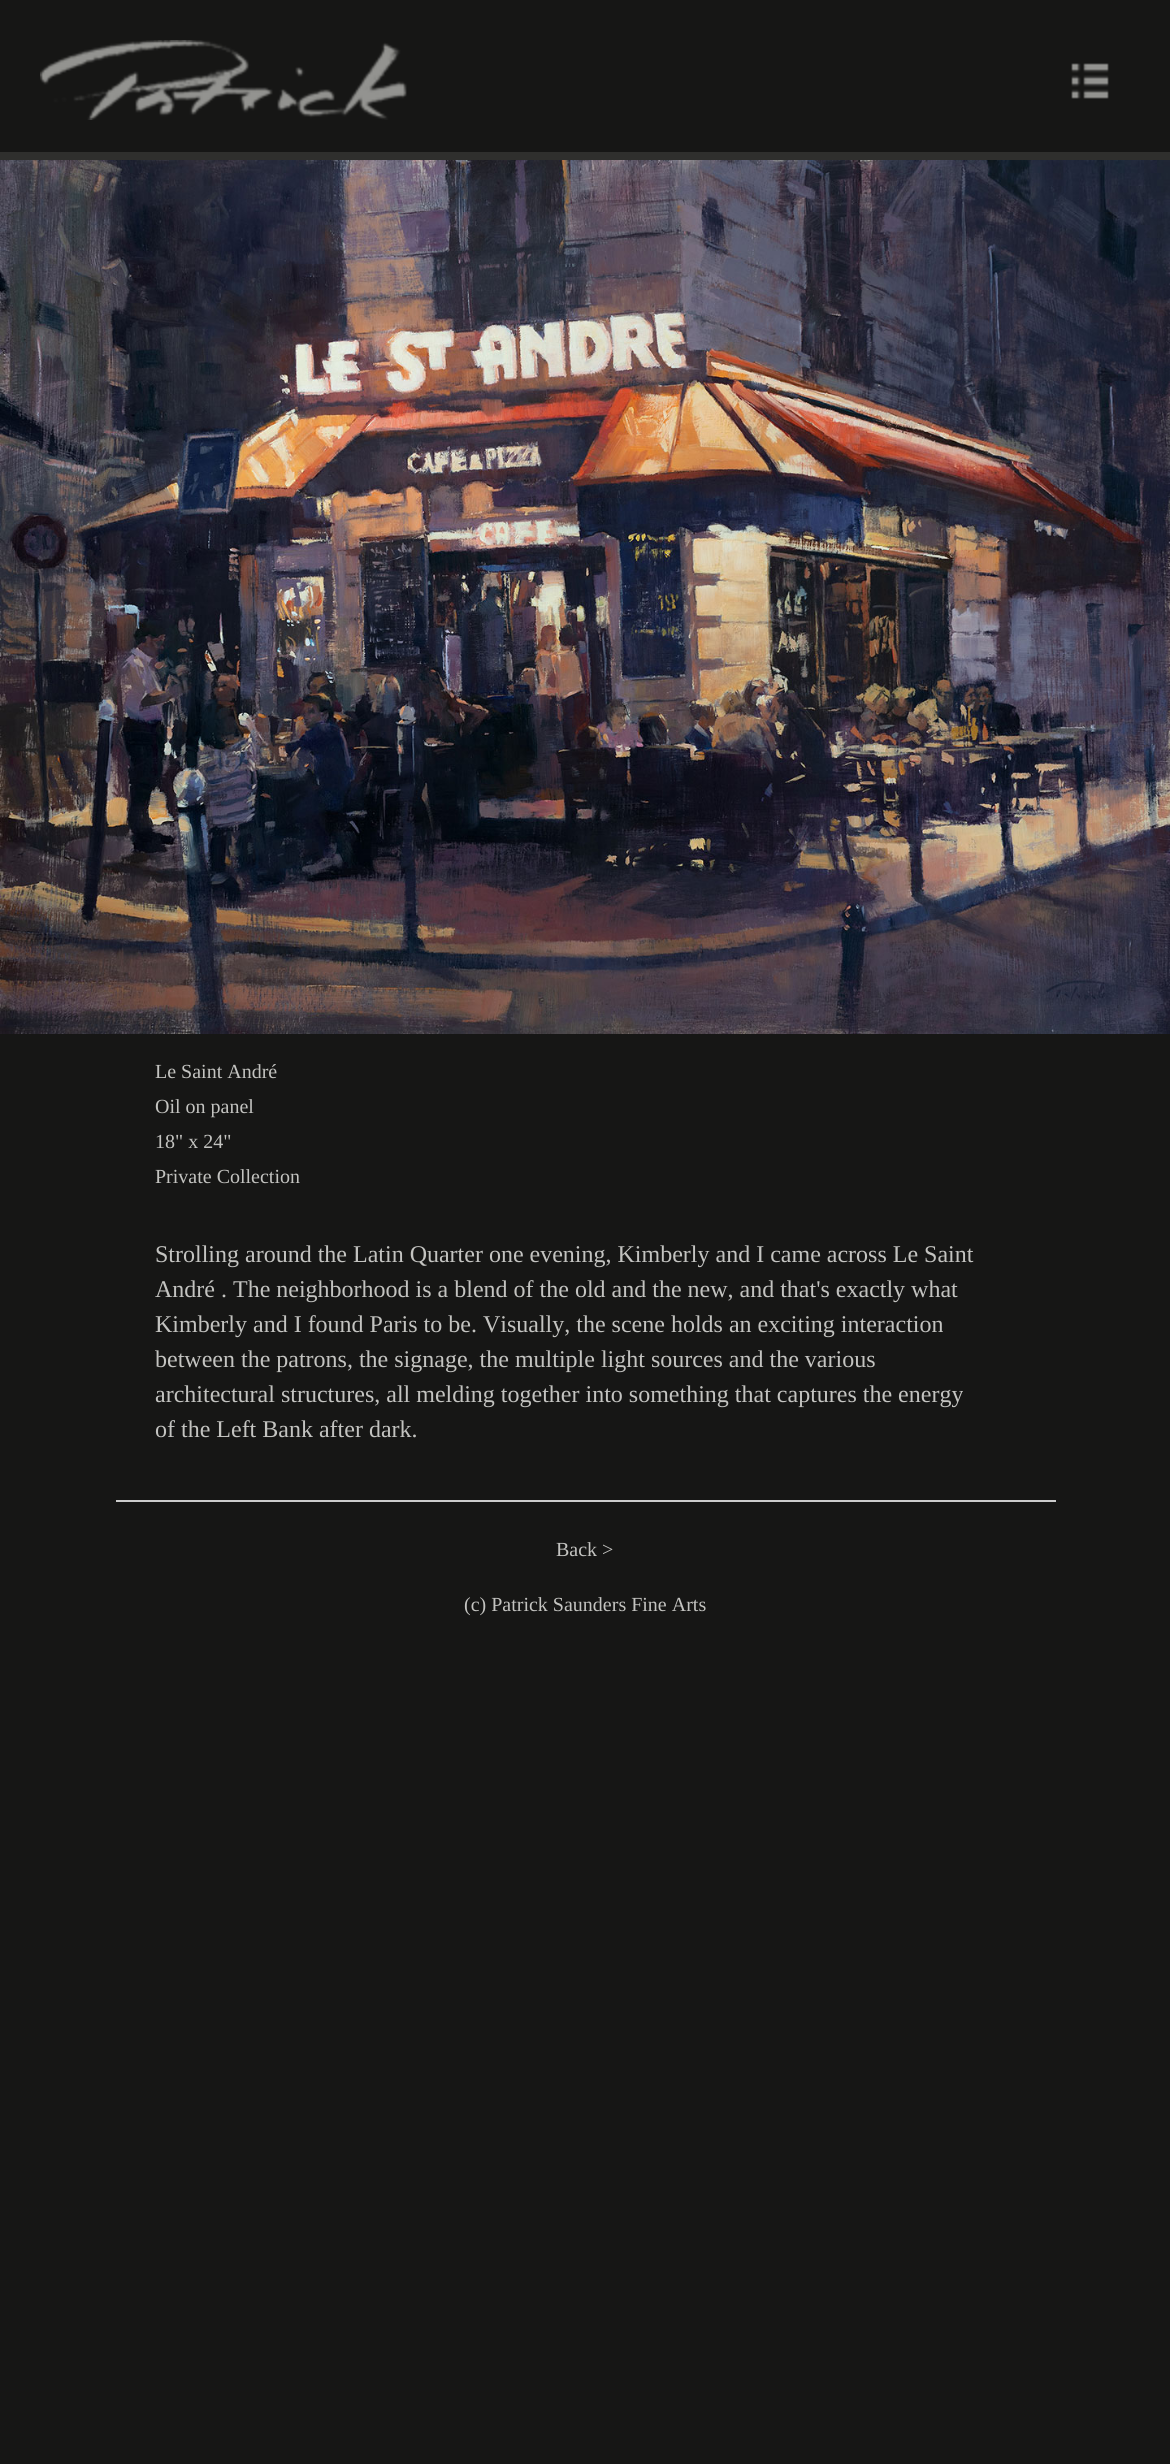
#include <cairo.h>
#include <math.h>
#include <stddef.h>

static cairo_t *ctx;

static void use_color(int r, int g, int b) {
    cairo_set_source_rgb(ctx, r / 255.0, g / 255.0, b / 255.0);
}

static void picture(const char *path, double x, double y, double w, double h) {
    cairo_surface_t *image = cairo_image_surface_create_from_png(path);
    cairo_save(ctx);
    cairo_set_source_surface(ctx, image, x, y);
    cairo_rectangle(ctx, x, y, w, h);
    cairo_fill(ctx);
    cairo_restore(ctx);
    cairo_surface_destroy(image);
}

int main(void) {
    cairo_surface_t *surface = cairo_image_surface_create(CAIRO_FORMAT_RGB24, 1170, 2464);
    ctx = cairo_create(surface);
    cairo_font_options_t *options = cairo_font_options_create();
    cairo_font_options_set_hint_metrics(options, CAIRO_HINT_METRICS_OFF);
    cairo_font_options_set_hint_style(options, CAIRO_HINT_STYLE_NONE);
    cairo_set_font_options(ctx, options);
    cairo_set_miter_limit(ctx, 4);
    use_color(22, 22, 21);
    cairo_paint(ctx);
    use_color(47, 47, 45);
    cairo_rectangle(ctx, 0, 152, 1170, 8);
    cairo_fill(ctx);
    picture("img1.png", 40, 40, 367, 80);
    picture("img2.png", 1071, 63, 38, 36);
    picture("img3.png", 0, 160, 1170, 874);
    cairo_select_font_face(ctx, "Liberation Serif", CAIRO_FONT_SLANT_NORMAL, CAIRO_FONT_WEIGHT_NORMAL);
    cairo_set_font_size(ctx, 20);
    use_color(195, 195, 192);
    cairo_move_to(ctx, 155, 1078);
    cairo_show_text(ctx, "Le Saint André");
    cairo_move_to(ctx, 155, 1113);
    cairo_show_text(ctx, "Oil on panel");
    cairo_move_to(ctx, 155, 1148);
    cairo_show_text(ctx, "18\" x 24\"");
    cairo_move_to(ctx, 155, 1183);
    cairo_show_text(ctx, "Private Collection");
    cairo_set_font_size(ctx, 24);
    cairo_move_to(ctx, 155, 1262);
    cairo_show_text(ctx, "Strolling around the Latin Quarter one evening, Kimberly and I came across Le Saint");
    cairo_move_to(ctx, 155, 1297);
    cairo_show_text(ctx, "André . The neighborhood is a blend of the old and the new, and that's exactly what");
    cairo_move_to(ctx, 155, 1332);
    cairo_show_text(ctx, "Kimberly and I found Paris to be. Visually, the scene holds an exciting interaction");
    cairo_move_to(ctx, 155, 1367);
    cairo_show_text(ctx, "between the patrons, the signage, the multiple light sources and the various");
    cairo_move_to(ctx, 155, 1402);
    cairo_show_text(ctx, "architectural structures, all melding together into something that captures the energy");
    cairo_move_to(ctx, 155, 1437);
    cairo_show_text(ctx, "of the Left Bank after dark.");
    use_color(204, 204, 204);
    cairo_rectangle(ctx, 116, 1500, 940, 2);
    cairo_fill(ctx);
    cairo_set_font_size(ctx, 20);
    use_color(195, 195, 192);
    cairo_move_to(ctx, 556, 1556);
    cairo_show_text(ctx, "Back >");
    cairo_move_to(ctx, 464, 1611);
    cairo_show_text(ctx, "(c) Patrick Saunders Fine Arts");
    cairo_surface_write_to_png(surface, "result.png");
    cairo_font_options_destroy(options);
    cairo_destroy(ctx);
    cairo_surface_destroy(surface);
    return 0;
}
